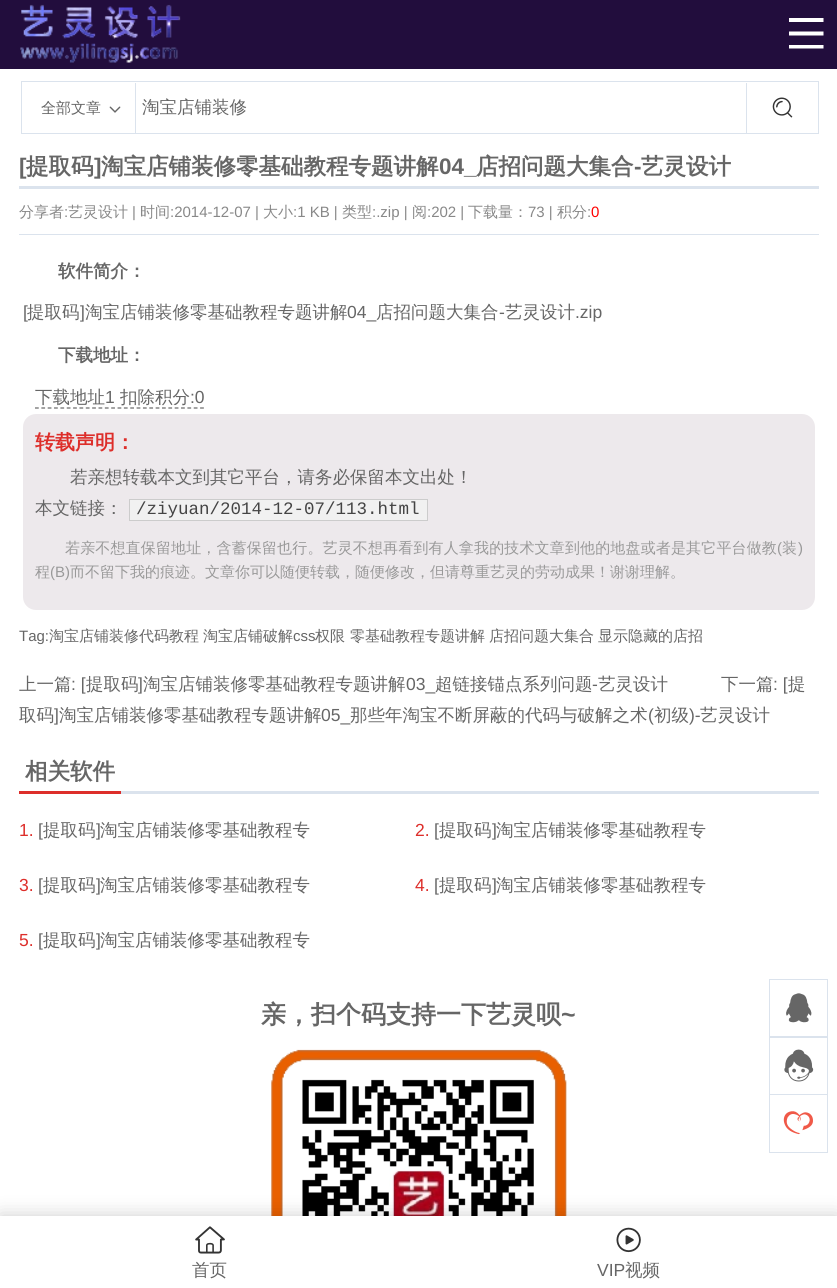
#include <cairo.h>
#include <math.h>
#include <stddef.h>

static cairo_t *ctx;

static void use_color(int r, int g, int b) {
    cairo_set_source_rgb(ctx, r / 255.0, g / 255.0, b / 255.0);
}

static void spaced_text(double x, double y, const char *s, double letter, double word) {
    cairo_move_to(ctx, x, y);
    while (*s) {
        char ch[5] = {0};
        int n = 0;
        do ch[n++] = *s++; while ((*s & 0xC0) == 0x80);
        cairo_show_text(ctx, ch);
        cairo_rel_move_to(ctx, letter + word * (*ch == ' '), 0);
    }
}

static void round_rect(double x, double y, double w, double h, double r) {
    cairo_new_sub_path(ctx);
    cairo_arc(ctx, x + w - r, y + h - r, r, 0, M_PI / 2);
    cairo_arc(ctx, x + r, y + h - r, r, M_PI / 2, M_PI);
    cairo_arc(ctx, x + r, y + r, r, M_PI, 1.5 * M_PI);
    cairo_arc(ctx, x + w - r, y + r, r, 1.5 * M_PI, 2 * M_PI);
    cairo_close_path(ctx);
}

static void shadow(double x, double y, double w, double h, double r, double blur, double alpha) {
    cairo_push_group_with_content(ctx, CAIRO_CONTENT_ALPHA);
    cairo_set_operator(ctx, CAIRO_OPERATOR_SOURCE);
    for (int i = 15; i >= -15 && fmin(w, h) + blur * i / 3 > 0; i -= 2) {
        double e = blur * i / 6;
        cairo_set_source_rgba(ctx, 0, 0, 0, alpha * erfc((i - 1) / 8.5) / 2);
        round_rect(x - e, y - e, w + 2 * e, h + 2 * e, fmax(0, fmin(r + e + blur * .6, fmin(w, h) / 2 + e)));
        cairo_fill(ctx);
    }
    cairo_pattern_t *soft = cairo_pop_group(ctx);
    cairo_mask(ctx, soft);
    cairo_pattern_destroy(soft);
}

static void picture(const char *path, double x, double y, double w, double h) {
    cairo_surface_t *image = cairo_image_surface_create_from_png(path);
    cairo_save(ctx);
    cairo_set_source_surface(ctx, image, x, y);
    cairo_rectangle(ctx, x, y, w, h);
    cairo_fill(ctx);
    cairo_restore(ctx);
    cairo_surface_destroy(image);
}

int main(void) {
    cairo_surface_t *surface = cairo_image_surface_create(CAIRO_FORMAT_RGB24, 837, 1288);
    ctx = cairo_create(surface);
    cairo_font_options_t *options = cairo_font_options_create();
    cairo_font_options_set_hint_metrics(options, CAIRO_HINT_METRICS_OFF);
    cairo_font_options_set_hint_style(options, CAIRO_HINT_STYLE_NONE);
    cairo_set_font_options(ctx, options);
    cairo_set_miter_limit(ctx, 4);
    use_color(255, 255, 255);
    cairo_paint(ctx);
    use_color(34, 13, 61);
    cairo_rectangle(ctx, 0, 0, 837, 69);
    cairo_fill(ctx);
    picture("img1.png", 20, 4, 161, 59);
    use_color(255, 255, 255);
    cairo_new_path(ctx);
    cairo_move_to(ctx, 789, 18);
    cairo_line_to(ctx, 789, 22);
    cairo_line_to(ctx, 823.5, 22);
    cairo_line_to(ctx, 823.5, 18);
    cairo_close_path(ctx);
    cairo_move_to(ctx, 789, 35.5);
    cairo_line_to(ctx, 823.5, 35.5);
    cairo_line_to(ctx, 823.5, 31.5);
    cairo_line_to(ctx, 789, 31.5);
    cairo_close_path(ctx);
    cairo_move_to(ctx, 789, 48.5);
    cairo_line_to(ctx, 823.5, 48.5);
    cairo_line_to(ctx, 823.5, 45);
    cairo_line_to(ctx, 789, 45);
    cairo_close_path(ctx);
    cairo_fill(ctx);
    cairo_rectangle(ctx, 21.5, 81.5, 797, 52);
    use_color(219, 227, 237);
    cairo_set_line_width(ctx, 1);
    cairo_stroke(ctx);
    cairo_rectangle(ctx, 135, 83, 1, 50);
    cairo_fill(ctx);
    cairo_select_font_face(ctx, "WenQuanYi Zen Hei Medium", CAIRO_FONT_SLANT_NORMAL, CAIRO_FONT_WEIGHT_NORMAL);
    cairo_set_font_size(ctx, 15);
    use_color(102, 102, 102);
    cairo_move_to(ctx, 41, 113);
    cairo_show_text(ctx, "全部文章");
    picture("img2.png", 109, 106, 12, 7);
    cairo_set_font_size(ctx, 17.5);
    cairo_move_to(ctx, 142, 113);
    cairo_show_text(ctx, "淘宝店铺装修");
    use_color(219, 227, 237);
    cairo_rectangle(ctx, 746, 83, 1, 50);
    cairo_fill(ctx);
    picture("img3.png", 772, 97, 21, 21);
    cairo_rectangle(ctx, 19, 186, 800, 3);
    cairo_fill(ctx);
    cairo_select_font_face(ctx, "Liberation Sans", CAIRO_FONT_SLANT_NORMAL, CAIRO_FONT_WEIGHT_BOLD);
    cairo_set_font_size(ctx, 22.5);
    use_color(102, 102, 102);
    cairo_move_to(ctx, 19, 174);
    cairo_show_text(ctx, "[");
    cairo_select_font_face(ctx, "WenQuanYi Zen Hei", CAIRO_FONT_SLANT_NORMAL, CAIRO_FONT_WEIGHT_BOLD);
    cairo_move_to(ctx, 26, 174);
    cairo_show_text(ctx, "提取码");
    cairo_select_font_face(ctx, "Liberation Sans", CAIRO_FONT_SLANT_NORMAL, CAIRO_FONT_WEIGHT_BOLD);
    cairo_move_to(ctx, 94, 174);
    cairo_show_text(ctx, "]");
    cairo_select_font_face(ctx, "WenQuanYi Zen Hei", CAIRO_FONT_SLANT_NORMAL, CAIRO_FONT_WEIGHT_BOLD);
    cairo_move_to(ctx, 101, 174);
    cairo_show_text(ctx, "淘宝店铺装修零基础教程专题讲解");
    cairo_select_font_face(ctx, "Liberation Sans", CAIRO_FONT_SLANT_NORMAL, CAIRO_FONT_WEIGHT_BOLD);
    cairo_move_to(ctx, 439, 174);
    cairo_show_text(ctx, "04_");
    cairo_select_font_face(ctx, "WenQuanYi Zen Hei", CAIRO_FONT_SLANT_NORMAL, CAIRO_FONT_WEIGHT_BOLD);
    cairo_move_to(ctx, 476, 174);
    cairo_show_text(ctx, "店招问题大集合");
    cairo_select_font_face(ctx, "Liberation Sans", CAIRO_FONT_SLANT_NORMAL, CAIRO_FONT_WEIGHT_BOLD);
    cairo_move_to(ctx, 634, 174);
    cairo_show_text(ctx, "-");
    cairo_select_font_face(ctx, "WenQuanYi Zen Hei", CAIRO_FONT_SLANT_NORMAL, CAIRO_FONT_WEIGHT_BOLD);
    cairo_move_to(ctx, 641, 174);
    cairo_show_text(ctx, "艺灵设计");
    use_color(219, 227, 237);
    cairo_rectangle(ctx, 19, 234, 800, 1);
    cairo_fill(ctx);
    cairo_select_font_face(ctx, "WenQuanYi Zen Hei Medium", CAIRO_FONT_SLANT_NORMAL, CAIRO_FONT_WEIGHT_NORMAL);
    cairo_set_font_size(ctx, 15);
    use_color(136, 136, 136);
    cairo_move_to(ctx, 19, 217);
    cairo_show_text(ctx, "分享者");
    cairo_select_font_face(ctx, "Liberation Sans", CAIRO_FONT_SLANT_NORMAL, CAIRO_FONT_WEIGHT_NORMAL);
    cairo_move_to(ctx, 64, 217);
    cairo_show_text(ctx, ":");
    cairo_select_font_face(ctx, "WenQuanYi Zen Hei Medium", CAIRO_FONT_SLANT_NORMAL, CAIRO_FONT_WEIGHT_NORMAL);
    cairo_move_to(ctx, 68, 217);
    cairo_show_text(ctx, "艺灵设计");
    cairo_select_font_face(ctx, "Liberation Sans", CAIRO_FONT_SLANT_NORMAL, CAIRO_FONT_WEIGHT_NORMAL);
    cairo_move_to(ctx, 132, 217);
    cairo_show_text(ctx, "|");
    cairo_select_font_face(ctx, "WenQuanYi Zen Hei Medium", CAIRO_FONT_SLANT_NORMAL, CAIRO_FONT_WEIGHT_NORMAL);
    cairo_move_to(ctx, 140, 217);
    cairo_show_text(ctx, "时间");
    cairo_select_font_face(ctx, "Liberation Sans", CAIRO_FONT_SLANT_NORMAL, CAIRO_FONT_WEIGHT_NORMAL);
    cairo_move_to(ctx, 170, 217);
    cairo_show_text(ctx, ":2014-12-07 |");
    cairo_select_font_face(ctx, "WenQuanYi Zen Hei Medium", CAIRO_FONT_SLANT_NORMAL, CAIRO_FONT_WEIGHT_NORMAL);
    cairo_move_to(ctx, 263, 217);
    cairo_show_text(ctx, "大小");
    cairo_select_font_face(ctx, "Liberation Sans", CAIRO_FONT_SLANT_NORMAL, CAIRO_FONT_WEIGHT_NORMAL);
    cairo_move_to(ctx, 293, 217);
    cairo_show_text(ctx, ":1 KB |");
    cairo_select_font_face(ctx, "WenQuanYi Zen Hei Medium", CAIRO_FONT_SLANT_NORMAL, CAIRO_FONT_WEIGHT_NORMAL);
    cairo_move_to(ctx, 342, 217);
    cairo_show_text(ctx, "类型");
    cairo_select_font_face(ctx, "Liberation Sans", CAIRO_FONT_SLANT_NORMAL, CAIRO_FONT_WEIGHT_NORMAL);
    cairo_move_to(ctx, 372, 217);
    cairo_show_text(ctx, ":.zip |");
    cairo_select_font_face(ctx, "WenQuanYi Zen Hei Medium", CAIRO_FONT_SLANT_NORMAL, CAIRO_FONT_WEIGHT_NORMAL);
    cairo_move_to(ctx, 412, 217);
    cairo_show_text(ctx, "阅");
    cairo_select_font_face(ctx, "Liberation Sans", CAIRO_FONT_SLANT_NORMAL, CAIRO_FONT_WEIGHT_NORMAL);
    cairo_move_to(ctx, 427, 217);
    cairo_show_text(ctx, ":202 |");
    cairo_select_font_face(ctx, "WenQuanYi Zen Hei Medium", CAIRO_FONT_SLANT_NORMAL, CAIRO_FONT_WEIGHT_NORMAL);
    cairo_move_to(ctx, 468, 217);
    cairo_show_text(ctx, "下载量：");
    cairo_select_font_face(ctx, "Liberation Sans", CAIRO_FONT_SLANT_NORMAL, CAIRO_FONT_WEIGHT_NORMAL);
    cairo_move_to(ctx, 528, 217);
    cairo_show_text(ctx, "73 |");
    cairo_select_font_face(ctx, "WenQuanYi Zen Hei Medium", CAIRO_FONT_SLANT_NORMAL, CAIRO_FONT_WEIGHT_NORMAL);
    cairo_move_to(ctx, 557, 217);
    cairo_show_text(ctx, "积分");
    cairo_select_font_face(ctx, "Liberation Sans", CAIRO_FONT_SLANT_NORMAL, CAIRO_FONT_WEIGHT_NORMAL);
    cairo_move_to(ctx, 587, 217);
    cairo_show_text(ctx, ":");
    use_color(255, 0, 0);
    cairo_move_to(ctx, 591, 217);
    cairo_show_text(ctx, "0");
    cairo_select_font_face(ctx, "WenQuanYi Zen Hei", CAIRO_FONT_SLANT_NORMAL, CAIRO_FONT_WEIGHT_BOLD);
    cairo_set_font_size(ctx, 17.5);
    use_color(102, 102, 102);
    cairo_move_to(ctx, 58, 277);
    cairo_show_text(ctx, "软件简介：");
    cairo_select_font_face(ctx, "Liberation Sans", CAIRO_FONT_SLANT_NORMAL, CAIRO_FONT_WEIGHT_NORMAL);
    cairo_move_to(ctx, 23, 318);
    cairo_show_text(ctx, "[");
    cairo_select_font_face(ctx, "WenQuanYi Zen Hei Medium", CAIRO_FONT_SLANT_NORMAL, CAIRO_FONT_WEIGHT_NORMAL);
    cairo_move_to(ctx, 27, 318);
    cairo_show_text(ctx, "提取码");
    cairo_select_font_face(ctx, "Liberation Sans", CAIRO_FONT_SLANT_NORMAL, CAIRO_FONT_WEIGHT_NORMAL);
    cairo_move_to(ctx, 80, 318);
    cairo_show_text(ctx, "]");
    cairo_select_font_face(ctx, "WenQuanYi Zen Hei Medium", CAIRO_FONT_SLANT_NORMAL, CAIRO_FONT_WEIGHT_NORMAL);
    cairo_move_to(ctx, 85, 318);
    cairo_show_text(ctx, "淘宝店铺装修零基础教程专题讲解");
    cairo_select_font_face(ctx, "Liberation Sans", CAIRO_FONT_SLANT_NORMAL, CAIRO_FONT_WEIGHT_NORMAL);
    cairo_move_to(ctx, 347, 318);
    cairo_show_text(ctx, "04_");
    cairo_select_font_face(ctx, "WenQuanYi Zen Hei Medium", CAIRO_FONT_SLANT_NORMAL, CAIRO_FONT_WEIGHT_NORMAL);
    cairo_move_to(ctx, 376, 318);
    cairo_show_text(ctx, "店招问题大集合");
    cairo_select_font_face(ctx, "Liberation Sans", CAIRO_FONT_SLANT_NORMAL, CAIRO_FONT_WEIGHT_NORMAL);
    cairo_move_to(ctx, 499, 318);
    cairo_show_text(ctx, "-");
    cairo_select_font_face(ctx, "WenQuanYi Zen Hei Medium", CAIRO_FONT_SLANT_NORMAL, CAIRO_FONT_WEIGHT_NORMAL);
    cairo_move_to(ctx, 505, 318);
    cairo_show_text(ctx, "艺灵设计");
    cairo_select_font_face(ctx, "Liberation Sans", CAIRO_FONT_SLANT_NORMAL, CAIRO_FONT_WEIGHT_NORMAL);
    cairo_move_to(ctx, 575, 318);
    cairo_show_text(ctx, ".zip");
    cairo_select_font_face(ctx, "WenQuanYi Zen Hei", CAIRO_FONT_SLANT_NORMAL, CAIRO_FONT_WEIGHT_BOLD);
    cairo_move_to(ctx, 58, 361);
    cairo_show_text(ctx, "下载地址：");
    cairo_select_font_face(ctx, "WenQuanYi Zen Hei Medium", CAIRO_FONT_SLANT_NORMAL, CAIRO_FONT_WEIGHT_NORMAL);
    cairo_move_to(ctx, 35, 403);
    cairo_show_text(ctx, "下载地址");
    cairo_new_path(ctx);
    cairo_move_to(ctx, 35, 408);
    cairo_line_to(ctx, 204, 408);
    cairo_set_line_width(ctx, 1.2);
    cairo_set_dash(ctx, (double[]){3.75, 2.6}, 2, 0);
    cairo_stroke(ctx);
    cairo_select_font_face(ctx, "Liberation Sans", CAIRO_FONT_SLANT_NORMAL, CAIRO_FONT_WEIGHT_NORMAL);
    cairo_move_to(ctx, 105, 403);
    cairo_show_text(ctx, "1");
    cairo_select_font_face(ctx, "WenQuanYi Zen Hei Medium", CAIRO_FONT_SLANT_NORMAL, CAIRO_FONT_WEIGHT_NORMAL);
    cairo_move_to(ctx, 120, 403);
    cairo_show_text(ctx, "扣除积分");
    cairo_select_font_face(ctx, "Liberation Sans", CAIRO_FONT_SLANT_NORMAL, CAIRO_FONT_WEIGHT_NORMAL);
    cairo_move_to(ctx, 190, 403);
    cairo_show_text(ctx, ":0");
    use_color(237, 233, 236);
    round_rect(23, 414, 792, 196, 13);
    cairo_fill(ctx);
    cairo_select_font_face(ctx, "WenQuanYi Zen Hei", CAIRO_FONT_SLANT_NORMAL, CAIRO_FONT_WEIGHT_BOLD);
    cairo_set_font_size(ctx, 20);
    use_color(221, 46, 42);
    cairo_move_to(ctx, 35, 449);
    cairo_show_text(ctx, "转载声明：");
    cairo_select_font_face(ctx, "WenQuanYi Zen Hei Medium", CAIRO_FONT_SLANT_NORMAL, CAIRO_FONT_WEIGHT_NORMAL);
    cairo_set_font_size(ctx, 17.5);
    use_color(102, 102, 102);
    cairo_move_to(ctx, 70, 483);
    cairo_show_text(ctx, "若亲想转载本文到其它平台，请务必保留本文出处！");
    cairo_move_to(ctx, 35, 514);
    cairo_show_text(ctx, "本文链接：");
    use_color(241, 241, 241);
    cairo_rectangle(ctx, 129.5, 499.5, 298, 21);
    cairo_fill_preserve(ctx);
    use_color(204, 204, 204);
    cairo_set_line_width(ctx, 1);
    cairo_set_dash(ctx, NULL, 0, 0);
    cairo_stroke(ctx);
    cairo_select_font_face(ctx, "Liberation Mono", CAIRO_FONT_SLANT_NORMAL, CAIRO_FONT_WEIGHT_NORMAL);
    use_color(68, 68, 68);
    cairo_move_to(ctx, 136, 514);
    cairo_show_text(ctx, "/ziyuan/2014-12-07/113.html");
    cairo_select_font_face(ctx, "WenQuanYi Zen Hei Medium", CAIRO_FONT_SLANT_NORMAL, CAIRO_FONT_WEIGHT_NORMAL);
    cairo_set_font_size(ctx, 15);
    use_color(153, 153, 153);
    spaced_text(65, 553, "若亲不想直保留地址，含蓄保留也行。艺灵不想再看到有人拿我的技术文章到他的地盘或者是其它平台做教", 0.15, 0);
    cairo_select_font_face(ctx, "Liberation Sans", CAIRO_FONT_SLANT_NORMAL, CAIRO_FONT_WEIGHT_NORMAL);
    spaced_text(777, 553, "(", 0.15, 0);
    cairo_select_font_face(ctx, "WenQuanYi Zen Hei Medium", CAIRO_FONT_SLANT_NORMAL, CAIRO_FONT_WEIGHT_NORMAL);
    spaced_text(782, 553, "装", 0.15, 0);
    cairo_select_font_face(ctx, "Liberation Sans", CAIRO_FONT_SLANT_NORMAL, CAIRO_FONT_WEIGHT_NORMAL);
    spaced_text(798, 553, ")", 0.15, 0);
    cairo_select_font_face(ctx, "WenQuanYi Zen Hei Medium", CAIRO_FONT_SLANT_NORMAL, CAIRO_FONT_WEIGHT_NORMAL);
    cairo_move_to(ctx, 35, 577);
    cairo_show_text(ctx, "程");
    cairo_select_font_face(ctx, "Liberation Sans", CAIRO_FONT_SLANT_NORMAL, CAIRO_FONT_WEIGHT_NORMAL);
    cairo_move_to(ctx, 50, 577);
    cairo_show_text(ctx, "(B)");
    cairo_select_font_face(ctx, "WenQuanYi Zen Hei Medium", CAIRO_FONT_SLANT_NORMAL, CAIRO_FONT_WEIGHT_NORMAL);
    cairo_move_to(ctx, 70, 577);
    cairo_show_text(ctx, "而不留下我的痕迹。文章你可以随便转载，随便修改，但请尊重艺灵的劳动成果！谢谢理解。");
    cairo_select_font_face(ctx, "Liberation Sans", CAIRO_FONT_SLANT_NORMAL, CAIRO_FONT_WEIGHT_NORMAL);
    use_color(102, 102, 102);
    cairo_move_to(ctx, 19, 641);
    cairo_show_text(ctx, "Tag:");
    cairo_select_font_face(ctx, "WenQuanYi Zen Hei Medium", CAIRO_FONT_SLANT_NORMAL, CAIRO_FONT_WEIGHT_NORMAL);
    cairo_move_to(ctx, 49, 641);
    cairo_show_text(ctx, "淘宝店铺装修代码教程");
    cairo_move_to(ctx, 203, 641);
    cairo_show_text(ctx, "淘宝店铺破解");
    cairo_select_font_face(ctx, "Liberation Sans", CAIRO_FONT_SLANT_NORMAL, CAIRO_FONT_WEIGHT_NORMAL);
    cairo_move_to(ctx, 293, 641);
    cairo_show_text(ctx, "css");
    cairo_select_font_face(ctx, "WenQuanYi Zen Hei Medium", CAIRO_FONT_SLANT_NORMAL, CAIRO_FONT_WEIGHT_NORMAL);
    cairo_move_to(ctx, 315, 641);
    cairo_show_text(ctx, "权限");
    cairo_move_to(ctx, 350, 641);
    cairo_show_text(ctx, "零基础教程专题讲解");
    cairo_move_to(ctx, 489, 641);
    cairo_show_text(ctx, "店招问题大集合");
    cairo_move_to(ctx, 598, 641);
    cairo_show_text(ctx, "显示隐藏的店招");
    cairo_set_font_size(ctx, 17.5);
    cairo_move_to(ctx, 19, 690);
    cairo_show_text(ctx, "上一篇");
    cairo_select_font_face(ctx, "Liberation Sans", CAIRO_FONT_SLANT_NORMAL, CAIRO_FONT_WEIGHT_NORMAL);
    cairo_move_to(ctx, 71, 690);
    cairo_show_text(ctx, ": [");
    cairo_select_font_face(ctx, "WenQuanYi Zen Hei Medium", CAIRO_FONT_SLANT_NORMAL, CAIRO_FONT_WEIGHT_NORMAL);
    cairo_move_to(ctx, 86, 690);
    cairo_show_text(ctx, "提取码");
    cairo_select_font_face(ctx, "Liberation Sans", CAIRO_FONT_SLANT_NORMAL, CAIRO_FONT_WEIGHT_NORMAL);
    cairo_move_to(ctx, 138, 690);
    cairo_show_text(ctx, "]");
    cairo_select_font_face(ctx, "WenQuanYi Zen Hei Medium", CAIRO_FONT_SLANT_NORMAL, CAIRO_FONT_WEIGHT_NORMAL);
    cairo_move_to(ctx, 143, 690);
    cairo_show_text(ctx, "淘宝店铺装修零基础教程专题讲解");
    cairo_select_font_face(ctx, "Liberation Sans", CAIRO_FONT_SLANT_NORMAL, CAIRO_FONT_WEIGHT_NORMAL);
    cairo_move_to(ctx, 406, 690);
    cairo_show_text(ctx, "03_");
    cairo_select_font_face(ctx, "WenQuanYi Zen Hei Medium", CAIRO_FONT_SLANT_NORMAL, CAIRO_FONT_WEIGHT_NORMAL);
    cairo_move_to(ctx, 435, 690);
    cairo_show_text(ctx, "超链接锚点系列问题");
    cairo_select_font_face(ctx, "Liberation Sans", CAIRO_FONT_SLANT_NORMAL, CAIRO_FONT_WEIGHT_NORMAL);
    cairo_move_to(ctx, 592, 690);
    cairo_show_text(ctx, "-");
    cairo_select_font_face(ctx, "WenQuanYi Zen Hei Medium", CAIRO_FONT_SLANT_NORMAL, CAIRO_FONT_WEIGHT_NORMAL);
    cairo_move_to(ctx, 598, 690);
    cairo_show_text(ctx, "艺灵设计");
    cairo_move_to(ctx, 721, 690);
    cairo_show_text(ctx, "下一篇");
    cairo_select_font_face(ctx, "Liberation Sans", CAIRO_FONT_SLANT_NORMAL, CAIRO_FONT_WEIGHT_NORMAL);
    cairo_move_to(ctx, 773, 690);
    cairo_show_text(ctx, ": [");
    cairo_select_font_face(ctx, "WenQuanYi Zen Hei Medium", CAIRO_FONT_SLANT_NORMAL, CAIRO_FONT_WEIGHT_NORMAL);
    cairo_move_to(ctx, 788, 690);
    cairo_show_text(ctx, "提");
    cairo_move_to(ctx, 19, 721);
    cairo_show_text(ctx, "取码");
    cairo_select_font_face(ctx, "Liberation Sans", CAIRO_FONT_SLANT_NORMAL, CAIRO_FONT_WEIGHT_NORMAL);
    cairo_move_to(ctx, 54, 721);
    cairo_show_text(ctx, "]");
    cairo_select_font_face(ctx, "WenQuanYi Zen Hei Medium", CAIRO_FONT_SLANT_NORMAL, CAIRO_FONT_WEIGHT_NORMAL);
    cairo_move_to(ctx, 59, 721);
    cairo_show_text(ctx, "淘宝店铺装修零基础教程专题讲解");
    cairo_select_font_face(ctx, "Liberation Sans", CAIRO_FONT_SLANT_NORMAL, CAIRO_FONT_WEIGHT_NORMAL);
    cairo_move_to(ctx, 321, 721);
    cairo_show_text(ctx, "05_");
    cairo_select_font_face(ctx, "WenQuanYi Zen Hei Medium", CAIRO_FONT_SLANT_NORMAL, CAIRO_FONT_WEIGHT_NORMAL);
    cairo_move_to(ctx, 350, 721);
    cairo_show_text(ctx, "那些年淘宝不断屏蔽的代码与破解之术");
    cairo_select_font_face(ctx, "Liberation Sans", CAIRO_FONT_SLANT_NORMAL, CAIRO_FONT_WEIGHT_NORMAL);
    cairo_move_to(ctx, 648, 721);
    cairo_show_text(ctx, "(");
    cairo_select_font_face(ctx, "WenQuanYi Zen Hei Medium", CAIRO_FONT_SLANT_NORMAL, CAIRO_FONT_WEIGHT_NORMAL);
    cairo_move_to(ctx, 654, 721);
    cairo_show_text(ctx, "初级");
    cairo_select_font_face(ctx, "Liberation Sans", CAIRO_FONT_SLANT_NORMAL, CAIRO_FONT_WEIGHT_NORMAL);
    cairo_move_to(ctx, 689, 721);
    cairo_show_text(ctx, ")-");
    cairo_select_font_face(ctx, "WenQuanYi Zen Hei Medium", CAIRO_FONT_SLANT_NORMAL, CAIRO_FONT_WEIGHT_NORMAL);
    cairo_move_to(ctx, 700, 721);
    cairo_show_text(ctx, "艺灵设计");
    use_color(219, 227, 237);
    cairo_rectangle(ctx, 121, 791, 698, 3);
    cairo_fill(ctx);
    use_color(221, 46, 42);
    cairo_rectangle(ctx, 19, 791, 102, 3);
    cairo_fill(ctx);
    cairo_select_font_face(ctx, "WenQuanYi Zen Hei", CAIRO_FONT_SLANT_NORMAL, CAIRO_FONT_WEIGHT_BOLD);
    cairo_set_font_size(ctx, 22.5);
    use_color(102, 102, 102);
    cairo_move_to(ctx, 25, 779);
    cairo_show_text(ctx, "相关软件");
    cairo_select_font_face(ctx, "Liberation Sans", CAIRO_FONT_SLANT_NORMAL, CAIRO_FONT_WEIGHT_NORMAL);
    cairo_set_font_size(ctx, 17.5);
    use_color(221, 46, 42);
    cairo_move_to(ctx, 19, 836);
    cairo_show_text(ctx, "1.");
    use_color(102, 102, 102);
    cairo_move_to(ctx, 38, 836);
    cairo_show_text(ctx, "[");
    cairo_select_font_face(ctx, "WenQuanYi Zen Hei Medium", CAIRO_FONT_SLANT_NORMAL, CAIRO_FONT_WEIGHT_NORMAL);
    cairo_move_to(ctx, 43, 836);
    cairo_show_text(ctx, "提取码");
    cairo_select_font_face(ctx, "Liberation Sans", CAIRO_FONT_SLANT_NORMAL, CAIRO_FONT_WEIGHT_NORMAL);
    cairo_move_to(ctx, 96, 836);
    cairo_show_text(ctx, "]");
    cairo_select_font_face(ctx, "WenQuanYi Zen Hei Medium", CAIRO_FONT_SLANT_NORMAL, CAIRO_FONT_WEIGHT_NORMAL);
    cairo_move_to(ctx, 100, 836);
    cairo_show_text(ctx, "淘宝店铺装修零基础教程专");
    cairo_select_font_face(ctx, "Liberation Sans", CAIRO_FONT_SLANT_NORMAL, CAIRO_FONT_WEIGHT_NORMAL);
    use_color(221, 46, 42);
    cairo_move_to(ctx, 415, 836);
    cairo_show_text(ctx, "2.");
    use_color(102, 102, 102);
    cairo_move_to(ctx, 434, 836);
    cairo_show_text(ctx, "[");
    cairo_select_font_face(ctx, "WenQuanYi Zen Hei Medium", CAIRO_FONT_SLANT_NORMAL, CAIRO_FONT_WEIGHT_NORMAL);
    cairo_move_to(ctx, 439, 836);
    cairo_show_text(ctx, "提取码");
    cairo_select_font_face(ctx, "Liberation Sans", CAIRO_FONT_SLANT_NORMAL, CAIRO_FONT_WEIGHT_NORMAL);
    cairo_move_to(ctx, 492, 836);
    cairo_show_text(ctx, "]");
    cairo_select_font_face(ctx, "WenQuanYi Zen Hei Medium", CAIRO_FONT_SLANT_NORMAL, CAIRO_FONT_WEIGHT_NORMAL);
    cairo_move_to(ctx, 496, 836);
    cairo_show_text(ctx, "淘宝店铺装修零基础教程专");
    cairo_select_font_face(ctx, "Liberation Sans", CAIRO_FONT_SLANT_NORMAL, CAIRO_FONT_WEIGHT_NORMAL);
    use_color(221, 46, 42);
    cairo_move_to(ctx, 19, 891);
    cairo_show_text(ctx, "3.");
    use_color(102, 102, 102);
    cairo_move_to(ctx, 38, 891);
    cairo_show_text(ctx, "[");
    cairo_select_font_face(ctx, "WenQuanYi Zen Hei Medium", CAIRO_FONT_SLANT_NORMAL, CAIRO_FONT_WEIGHT_NORMAL);
    cairo_move_to(ctx, 43, 891);
    cairo_show_text(ctx, "提取码");
    cairo_select_font_face(ctx, "Liberation Sans", CAIRO_FONT_SLANT_NORMAL, CAIRO_FONT_WEIGHT_NORMAL);
    cairo_move_to(ctx, 96, 891);
    cairo_show_text(ctx, "]");
    cairo_select_font_face(ctx, "WenQuanYi Zen Hei Medium", CAIRO_FONT_SLANT_NORMAL, CAIRO_FONT_WEIGHT_NORMAL);
    cairo_move_to(ctx, 100, 891);
    cairo_show_text(ctx, "淘宝店铺装修零基础教程专");
    cairo_select_font_face(ctx, "Liberation Sans", CAIRO_FONT_SLANT_NORMAL, CAIRO_FONT_WEIGHT_NORMAL);
    use_color(221, 46, 42);
    cairo_move_to(ctx, 415, 891);
    cairo_show_text(ctx, "4.");
    use_color(102, 102, 102);
    cairo_move_to(ctx, 434, 891);
    cairo_show_text(ctx, "[");
    cairo_select_font_face(ctx, "WenQuanYi Zen Hei Medium", CAIRO_FONT_SLANT_NORMAL, CAIRO_FONT_WEIGHT_NORMAL);
    cairo_move_to(ctx, 439, 891);
    cairo_show_text(ctx, "提取码");
    cairo_select_font_face(ctx, "Liberation Sans", CAIRO_FONT_SLANT_NORMAL, CAIRO_FONT_WEIGHT_NORMAL);
    cairo_move_to(ctx, 492, 891);
    cairo_show_text(ctx, "]");
    cairo_select_font_face(ctx, "WenQuanYi Zen Hei Medium", CAIRO_FONT_SLANT_NORMAL, CAIRO_FONT_WEIGHT_NORMAL);
    cairo_move_to(ctx, 496, 891);
    cairo_show_text(ctx, "淘宝店铺装修零基础教程专");
    cairo_select_font_face(ctx, "Liberation Sans", CAIRO_FONT_SLANT_NORMAL, CAIRO_FONT_WEIGHT_NORMAL);
    use_color(221, 46, 42);
    cairo_move_to(ctx, 19, 946);
    cairo_show_text(ctx, "5.");
    use_color(102, 102, 102);
    cairo_move_to(ctx, 38, 946);
    cairo_show_text(ctx, "[");
    cairo_select_font_face(ctx, "WenQuanYi Zen Hei Medium", CAIRO_FONT_SLANT_NORMAL, CAIRO_FONT_WEIGHT_NORMAL);
    cairo_move_to(ctx, 43, 946);
    cairo_show_text(ctx, "提取码");
    cairo_select_font_face(ctx, "Liberation Sans", CAIRO_FONT_SLANT_NORMAL, CAIRO_FONT_WEIGHT_NORMAL);
    cairo_move_to(ctx, 96, 946);
    cairo_show_text(ctx, "]");
    cairo_select_font_face(ctx, "WenQuanYi Zen Hei Medium", CAIRO_FONT_SLANT_NORMAL, CAIRO_FONT_WEIGHT_NORMAL);
    cairo_move_to(ctx, 100, 946);
    cairo_show_text(ctx, "淘宝店铺装修零基础教程专");
    cairo_select_font_face(ctx, "WenQuanYi Zen Hei", CAIRO_FONT_SLANT_NORMAL, CAIRO_FONT_WEIGHT_BOLD);
    cairo_set_font_size(ctx, 25);
    cairo_move_to(ctx, 261, 1023);
    cairo_show_text(ctx, "亲，扫个码支持一下艺灵呗");
    cairo_select_font_face(ctx, "Liberation Sans", CAIRO_FONT_SLANT_NORMAL, CAIRO_FONT_WEIGHT_BOLD);
    cairo_move_to(ctx, 561, 1023);
    cairo_show_text(ctx, "~");
    picture("img4.png", 271, 1049, 296, 167);
    cairo_rectangle(ctx, 769.5, 979.5, 58, 58);
    use_color(219, 227, 237);
    cairo_stroke(ctx);
    picture("img5.png", 786, 993, 26, 30);
    cairo_rectangle(ctx, 769.5, 1036.5, 58, 58);
    cairo_stroke(ctx);
    picture("img6.png", 784, 1049, 30, 33);
    cairo_rectangle(ctx, 769.5, 1094.5, 58, 58);
    cairo_stroke(ctx);
    picture("img7.png", 783, 1111, 30, 24);
    use_color(0, 0, 0);
    shadow(0, 1216, 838, 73, 0, 9.5, 0.2);
    use_color(255, 255, 255);
    cairo_rectangle(ctx, 0, 1216, 837, 72);
    cairo_fill(ctx);
    picture("img8.png", 195, 1226, 30, 28);
    cairo_select_font_face(ctx, "WenQuanYi Zen Hei Medium", CAIRO_FONT_SLANT_NORMAL, CAIRO_FONT_WEIGHT_NORMAL);
    cairo_set_font_size(ctx, 17.5);
    use_color(102, 102, 102);
    cairo_move_to(ctx, 192, 1276);
    cairo_show_text(ctx, "首页");
    picture("img9.png", 616, 1227, 25, 26);
    cairo_select_font_face(ctx, "Liberation Sans", CAIRO_FONT_SLANT_NORMAL, CAIRO_FONT_WEIGHT_NORMAL);
    cairo_move_to(ctx, 597, 1276);
    cairo_show_text(ctx, "VIP");
    cairo_select_font_face(ctx, "WenQuanYi Zen Hei Medium", CAIRO_FONT_SLANT_NORMAL, CAIRO_FONT_WEIGHT_NORMAL);
    cairo_move_to(ctx, 625, 1276);
    cairo_show_text(ctx, "视频");
    cairo_surface_write_to_png(surface, "result.png");
    cairo_font_options_destroy(options);
    cairo_destroy(ctx);
    cairo_surface_destroy(surface);
    return 0;
}
